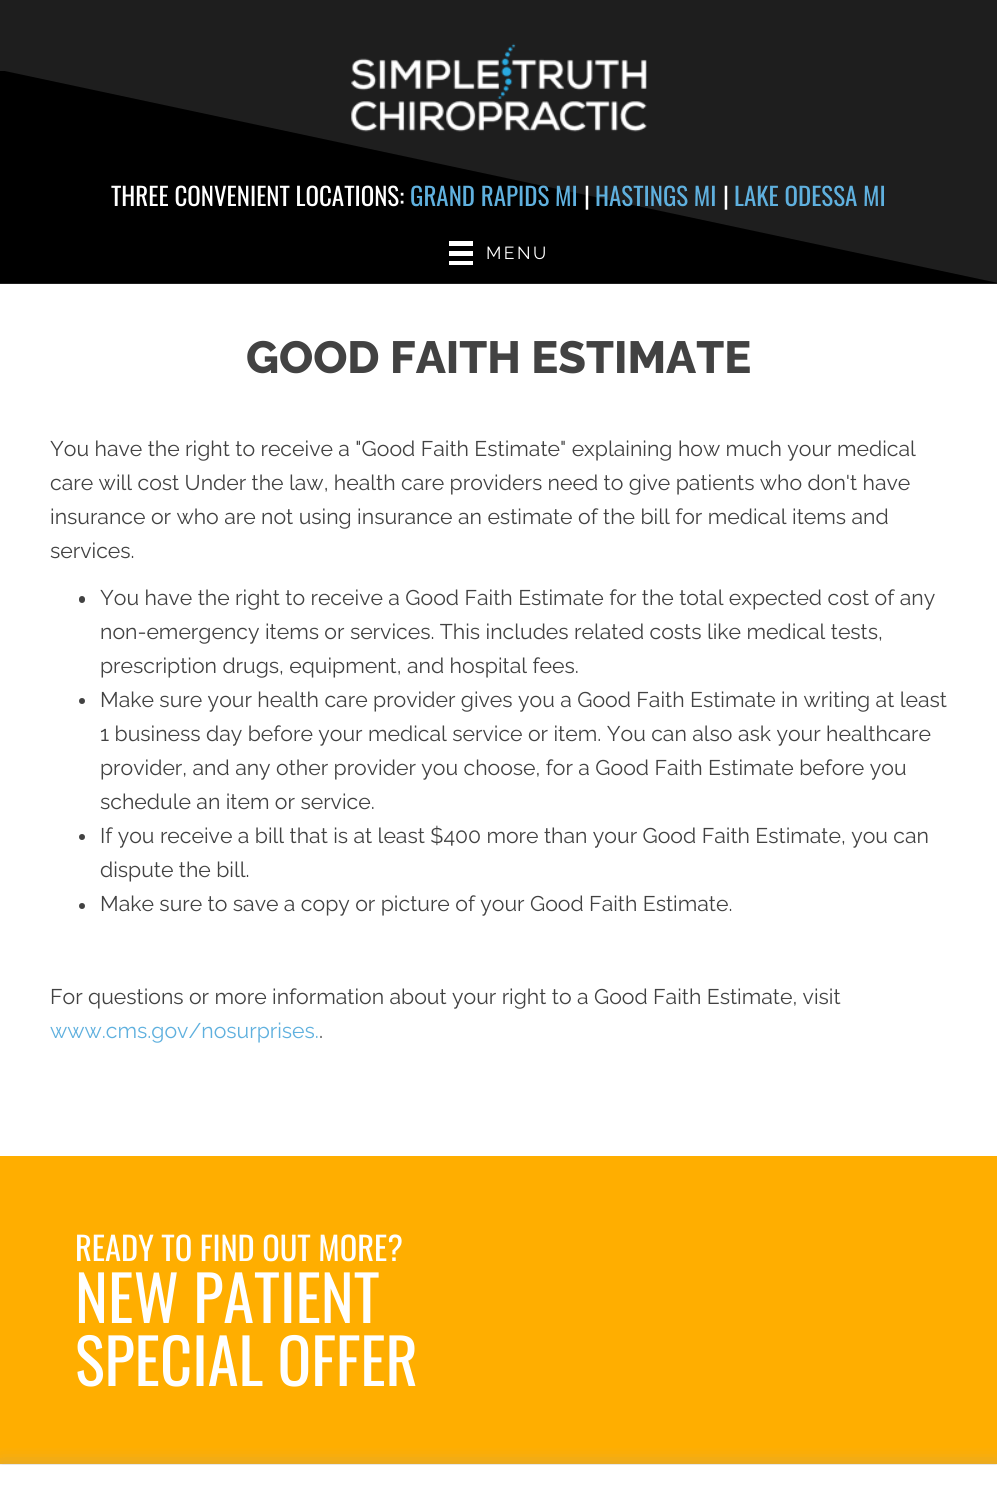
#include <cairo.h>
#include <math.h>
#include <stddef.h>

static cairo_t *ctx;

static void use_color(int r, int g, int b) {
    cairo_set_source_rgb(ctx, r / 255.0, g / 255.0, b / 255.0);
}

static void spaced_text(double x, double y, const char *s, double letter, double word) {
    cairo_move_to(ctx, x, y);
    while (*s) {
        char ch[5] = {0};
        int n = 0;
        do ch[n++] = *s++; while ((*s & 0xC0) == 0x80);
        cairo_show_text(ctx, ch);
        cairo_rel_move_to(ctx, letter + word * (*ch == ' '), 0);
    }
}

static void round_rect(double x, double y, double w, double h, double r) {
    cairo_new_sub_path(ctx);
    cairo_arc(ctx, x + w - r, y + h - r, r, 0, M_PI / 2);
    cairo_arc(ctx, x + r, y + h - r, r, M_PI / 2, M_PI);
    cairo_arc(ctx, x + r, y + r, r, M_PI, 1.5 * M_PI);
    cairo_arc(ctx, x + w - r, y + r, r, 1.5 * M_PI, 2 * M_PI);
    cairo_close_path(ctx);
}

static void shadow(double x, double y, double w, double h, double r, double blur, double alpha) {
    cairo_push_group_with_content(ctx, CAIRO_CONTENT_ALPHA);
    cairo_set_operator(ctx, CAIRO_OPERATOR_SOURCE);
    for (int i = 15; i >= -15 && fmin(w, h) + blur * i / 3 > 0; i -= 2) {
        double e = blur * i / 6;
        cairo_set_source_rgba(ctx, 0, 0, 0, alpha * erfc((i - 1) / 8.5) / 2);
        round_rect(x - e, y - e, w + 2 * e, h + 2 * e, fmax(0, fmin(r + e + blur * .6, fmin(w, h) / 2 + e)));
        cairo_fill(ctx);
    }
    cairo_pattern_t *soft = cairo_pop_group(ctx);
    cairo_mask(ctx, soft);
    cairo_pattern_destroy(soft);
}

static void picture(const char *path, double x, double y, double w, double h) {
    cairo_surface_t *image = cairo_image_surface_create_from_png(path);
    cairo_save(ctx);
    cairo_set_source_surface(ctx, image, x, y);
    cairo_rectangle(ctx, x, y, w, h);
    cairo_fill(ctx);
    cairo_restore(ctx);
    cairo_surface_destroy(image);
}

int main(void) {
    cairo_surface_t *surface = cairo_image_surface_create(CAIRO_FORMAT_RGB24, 997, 1511);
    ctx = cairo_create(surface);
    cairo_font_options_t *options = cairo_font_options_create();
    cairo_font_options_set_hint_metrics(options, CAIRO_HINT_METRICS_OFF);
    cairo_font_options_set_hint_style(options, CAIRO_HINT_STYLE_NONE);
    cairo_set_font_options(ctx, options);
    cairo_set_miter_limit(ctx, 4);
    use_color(255, 255, 255);
    cairo_paint(ctx);
    use_color(30, 30, 30);
    cairo_rectangle(ctx, 0, 0, 997, 284);
    cairo_fill(ctx);
    cairo_save(ctx);
    cairo_rectangle(ctx, 0, 71, 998, 213);
    cairo_clip(ctx);
    use_color(0, 0, 0);
    cairo_new_path(ctx);
    cairo_move_to(ctx, 0, 70);
    cairo_line_to(ctx, 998, 283);
    cairo_line_to(ctx, 0, 283);
    cairo_close_path(ctx);
    cairo_fill(ctx);
    cairo_restore(ctx);
    picture("img1.png", 351, 43, 296, 89);
    cairo_select_font_face(ctx, "Oswald", CAIRO_FONT_SLANT_NORMAL, CAIRO_FONT_WEIGHT_NORMAL);
    cairo_set_font_size(ctx, 25);
    use_color(255, 255, 255);
    cairo_move_to(ctx, 111, 206);
    cairo_show_text(ctx, "THREE CONVENIENT LOCATIONS:");
    use_color(95, 176, 222);
    cairo_move_to(ctx, 410, 206);
    cairo_show_text(ctx, "GRAND RAPIDS MI");
    use_color(255, 255, 255);
    cairo_move_to(ctx, 584, 206);
    cairo_show_text(ctx, "|");
    use_color(95, 176, 222);
    cairo_move_to(ctx, 595, 206);
    cairo_show_text(ctx, "HASTINGS MI");
    use_color(255, 255, 255);
    cairo_move_to(ctx, 723, 206);
    cairo_show_text(ctx, "|");
    use_color(95, 176, 222);
    cairo_move_to(ctx, 734, 206);
    cairo_show_text(ctx, "LAKE ODESSA MI");
    use_color(255, 255, 255);
    cairo_rectangle(ctx, 449, 241, 24, 5);
    cairo_fill(ctx);
    cairo_rectangle(ctx, 449, 251, 24, 5);
    cairo_fill(ctx);
    cairo_rectangle(ctx, 449, 261, 24, 4);
    cairo_fill(ctx);
    cairo_select_font_face(ctx, "Raleway", CAIRO_FONT_SLANT_NORMAL, CAIRO_FONT_WEIGHT_NORMAL);
    cairo_set_font_size(ctx, 17.5);
    spaced_text(486, 259, "MENU", 2.5, 0);
    cairo_select_font_face(ctx, "Raleway ExtraBold", CAIRO_FONT_SLANT_NORMAL, CAIRO_FONT_WEIGHT_NORMAL);
    cairo_set_font_size(ctx, 45);
    use_color(66, 66, 66);
    cairo_move_to(ctx, 246, 373);
    cairo_show_text(ctx, "GOOD FAITH ESTIMATE");
    cairo_select_font_face(ctx, "Raleway", CAIRO_FONT_SLANT_NORMAL, CAIRO_FONT_WEIGHT_NORMAL);
    cairo_set_font_size(ctx, 21.25);
    cairo_move_to(ctx, 50, 456);
    cairo_show_text(ctx, "You have the right to receive a \"Good Faith Estimate\" explaining how much your medical");
    cairo_move_to(ctx, 50, 490);
    cairo_show_text(ctx, "care will cost Under the law, health care providers need to give patients who don't have");
    cairo_move_to(ctx, 50, 524);
    cairo_show_text(ctx, "insurance or who are not using insurance an estimate of the bill for medical items and");
    cairo_move_to(ctx, 50, 558);
    cairo_show_text(ctx, "services.");
    round_rect(79, 596, 6, 7, 3);
    cairo_fill(ctx);
    cairo_move_to(ctx, 100, 605);
    cairo_show_text(ctx, "You have the right to receive a Good Faith Estimate for the total expected cost of any");
    cairo_move_to(ctx, 100, 639);
    cairo_show_text(ctx, "non-emergency items or services. This includes related costs like medical tests,");
    cairo_move_to(ctx, 100, 673);
    cairo_show_text(ctx, "prescription drugs, equipment, and hospital fees.");
    cairo_new_path(ctx);
    cairo_arc(ctx, 82, 701, 3, 0, 2 * M_PI);
    cairo_fill(ctx);
    cairo_move_to(ctx, 100, 707);
    cairo_show_text(ctx, "Make sure your health care provider gives you a Good Faith Estimate in writing at least");
    cairo_move_to(ctx, 100, 741);
    cairo_show_text(ctx, "1 business day before your medical service or item. You can also ask your healthcare");
    cairo_move_to(ctx, 100, 775);
    cairo_show_text(ctx, "provider, and any other provider you choose, for a Good Faith Estimate before you");
    cairo_move_to(ctx, 100, 809);
    cairo_show_text(ctx, "schedule an item or service.");
    cairo_new_path(ctx);
    cairo_arc(ctx, 82, 837, 3, 0, 2 * M_PI);
    cairo_fill(ctx);
    cairo_move_to(ctx, 100, 843);
    cairo_show_text(ctx, "If you receive a bill that is at least $400 more than your Good Faith Estimate, you can");
    cairo_move_to(ctx, 100, 877);
    cairo_show_text(ctx, "dispute the bill.");
    cairo_new_path(ctx);
    cairo_arc(ctx, 82, 906, 3, 0, 2 * M_PI);
    cairo_fill(ctx);
    cairo_move_to(ctx, 100, 911);
    cairo_show_text(ctx, "Make sure to save a copy or picture of your Good Faith Estimate.");
    cairo_move_to(ctx, 50, 1004);
    cairo_show_text(ctx, "For questions or more information about your right to a Good Faith Estimate, visit");
    use_color(95, 176, 222);
    cairo_move_to(ctx, 50, 1038);
    cairo_show_text(ctx, "www.cms.gov/nosurprises.");
    use_color(66, 66, 66);
    cairo_move_to(ctx, 319, 1038);
    cairo_show_text(ctx, ".");
    use_color(255, 174, 0);
    cairo_rectangle(ctx, 0, 1156, 997, 308);
    cairo_fill(ctx);
    cairo_select_font_face(ctx, "Oswald", CAIRO_FONT_SLANT_NORMAL, CAIRO_FONT_WEIGHT_NORMAL);
    cairo_set_font_size(ctx, 32.5);
    use_color(255, 255, 255);
    cairo_move_to(ctx, 75, 1261);
    cairo_show_text(ctx, "READY TO FIND OUT MORE?");
    cairo_set_font_size(ctx, 62.5);
    cairo_move_to(ctx, 75, 1323);
    cairo_show_text(ctx, "NEW PATIENT");
    cairo_move_to(ctx, 75, 1386);
    cairo_show_text(ctx, "SPECIAL OFFER");
    cairo_save(ctx);
    cairo_rectangle(ctx, 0, 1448, 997, 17);
    cairo_clip(ctx);
    use_color(160, 160, 160);
    shadow(0, 1465, 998, 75, 0, 9.5, 0.5);
    cairo_restore(ctx);
    cairo_surface_write_to_png(surface, "result.png");
    cairo_font_options_destroy(options);
    cairo_destroy(ctx);
    cairo_surface_destroy(surface);
    return 0;
}
